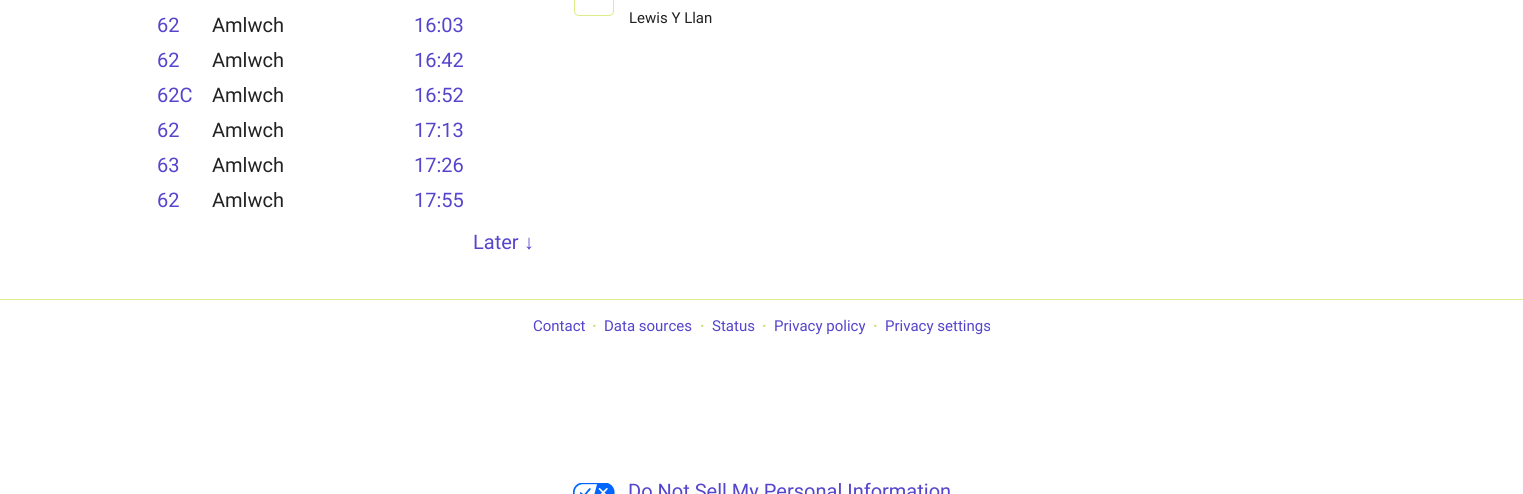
#include <cairo.h>
#include <math.h>
#include <stddef.h>

static cairo_t *ctx;

static void use_color(int r, int g, int b) {
    cairo_set_source_rgb(ctx, r / 255.0, g / 255.0, b / 255.0);
}

static void round_rect(double x, double y, double w, double h, double r) {
    cairo_new_sub_path(ctx);
    cairo_arc(ctx, x + w - r, y + h - r, r, 0, M_PI / 2);
    cairo_arc(ctx, x + r, y + h - r, r, M_PI / 2, M_PI);
    cairo_arc(ctx, x + r, y + r, r, M_PI, 1.5 * M_PI);
    cairo_arc(ctx, x + w - r, y + r, r, 1.5 * M_PI, 2 * M_PI);
    cairo_close_path(ctx);
}

static void picture(const char *path, double x, double y, double w, double h) {
    cairo_surface_t *image = cairo_image_surface_create_from_png(path);
    cairo_save(ctx);
    cairo_set_source_surface(ctx, image, x, y);
    cairo_rectangle(ctx, x, y, w, h);
    cairo_fill(ctx);
    cairo_restore(ctx);
    cairo_surface_destroy(image);
}

int main(void) {
    cairo_surface_t *surface = cairo_image_surface_create(CAIRO_FORMAT_RGB24, 1523, 494);
    ctx = cairo_create(surface);
    cairo_font_options_t *options = cairo_font_options_create();
    cairo_font_options_set_hint_metrics(options, CAIRO_HINT_METRICS_OFF);
    cairo_font_options_set_hint_style(options, CAIRO_HINT_STYLE_NONE);
    cairo_set_font_options(ctx, options);
    cairo_set_miter_limit(ctx, 4);
    use_color(255, 255, 255);
    cairo_paint(ctx);
    cairo_select_font_face(ctx, "Roboto", CAIRO_FONT_SLANT_NORMAL, CAIRO_FONT_WEIGHT_NORMAL);
    cairo_set_font_size(ctx, 20);
    use_color(85, 68, 204);
    cairo_move_to(ctx, 157, 32);
    cairo_show_text(ctx, "62");
    use_color(34, 34, 34);
    cairo_move_to(ctx, 212, 32);
    cairo_show_text(ctx, "Amlwch");
    use_color(85, 68, 204);
    cairo_move_to(ctx, 414, 32);
    cairo_show_text(ctx, "16:03");
    cairo_move_to(ctx, 157, 67);
    cairo_show_text(ctx, "62");
    use_color(34, 34, 34);
    cairo_move_to(ctx, 212, 67);
    cairo_show_text(ctx, "Amlwch");
    use_color(85, 68, 204);
    cairo_move_to(ctx, 414, 67);
    cairo_show_text(ctx, "16:42");
    cairo_move_to(ctx, 157, 102);
    cairo_show_text(ctx, "62C");
    use_color(34, 34, 34);
    cairo_move_to(ctx, 212, 102);
    cairo_show_text(ctx, "Amlwch");
    use_color(85, 68, 204);
    cairo_move_to(ctx, 414, 102);
    cairo_show_text(ctx, "16:52");
    cairo_move_to(ctx, 157, 137);
    cairo_show_text(ctx, "62");
    use_color(34, 34, 34);
    cairo_move_to(ctx, 212, 137);
    cairo_show_text(ctx, "Amlwch");
    use_color(85, 68, 204);
    cairo_move_to(ctx, 414, 137);
    cairo_show_text(ctx, "17:13");
    cairo_move_to(ctx, 157, 172);
    cairo_show_text(ctx, "63");
    use_color(34, 34, 34);
    cairo_move_to(ctx, 212, 172);
    cairo_show_text(ctx, "Amlwch");
    use_color(85, 68, 204);
    cairo_move_to(ctx, 414, 172);
    cairo_show_text(ctx, "17:26");
    cairo_move_to(ctx, 157, 207);
    cairo_show_text(ctx, "62");
    use_color(34, 34, 34);
    cairo_move_to(ctx, 212, 207);
    cairo_show_text(ctx, "Amlwch");
    use_color(85, 68, 204);
    cairo_move_to(ctx, 414, 207);
    cairo_show_text(ctx, "17:55");
    cairo_move_to(ctx, 473, 249);
    cairo_show_text(ctx, "Later");
    cairo_select_font_face(ctx, "Liberation Sans", CAIRO_FONT_SLANT_NORMAL, CAIRO_FONT_WEIGHT_NORMAL);
    cairo_move_to(ctx, 524, 249);
    cairo_show_text(ctx, "↓");
    round_rect(574.5, -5.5, 39, 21, 4.5);
    use_color(221, 238, 136);
    cairo_set_line_width(ctx, 1);
    cairo_stroke(ctx);
    cairo_select_font_face(ctx, "Roboto", CAIRO_FONT_SLANT_NORMAL, CAIRO_FONT_WEIGHT_NORMAL);
    cairo_set_font_size(ctx, 15);
    use_color(34, 34, 34);
    cairo_move_to(ctx, 629, 23);
    cairo_show_text(ctx, "Lewis Y Llan");
    use_color(221, 238, 136);
    cairo_rectangle(ctx, 0, 299, 1523, 1);
    cairo_fill(ctx);
    use_color(85, 68, 204);
    cairo_move_to(ctx, 533, 331);
    cairo_show_text(ctx, "Contact");
    cairo_select_font_face(ctx, "Roboto", CAIRO_FONT_SLANT_NORMAL, CAIRO_FONT_WEIGHT_BOLD);
    use_color(204, 221, 119);
    cairo_move_to(ctx, 592, 331);
    cairo_show_text(ctx, "·");
    cairo_select_font_face(ctx, "Roboto", CAIRO_FONT_SLANT_NORMAL, CAIRO_FONT_WEIGHT_NORMAL);
    use_color(85, 68, 204);
    cairo_move_to(ctx, 604, 331);
    cairo_show_text(ctx, "Data sources");
    cairo_select_font_face(ctx, "Roboto", CAIRO_FONT_SLANT_NORMAL, CAIRO_FONT_WEIGHT_BOLD);
    use_color(204, 221, 119);
    cairo_move_to(ctx, 700, 331);
    cairo_show_text(ctx, "·");
    cairo_select_font_face(ctx, "Roboto", CAIRO_FONT_SLANT_NORMAL, CAIRO_FONT_WEIGHT_NORMAL);
    use_color(85, 68, 204);
    cairo_move_to(ctx, 712, 331);
    cairo_show_text(ctx, "Status");
    cairo_select_font_face(ctx, "Roboto", CAIRO_FONT_SLANT_NORMAL, CAIRO_FONT_WEIGHT_BOLD);
    use_color(204, 221, 119);
    cairo_move_to(ctx, 762, 331);
    cairo_show_text(ctx, "·");
    cairo_select_font_face(ctx, "Roboto", CAIRO_FONT_SLANT_NORMAL, CAIRO_FONT_WEIGHT_NORMAL);
    use_color(85, 68, 204);
    cairo_move_to(ctx, 774, 331);
    cairo_show_text(ctx, "Privacy policy");
    cairo_select_font_face(ctx, "Roboto", CAIRO_FONT_SLANT_NORMAL, CAIRO_FONT_WEIGHT_BOLD);
    use_color(204, 221, 119);
    cairo_move_to(ctx, 873, 331);
    cairo_show_text(ctx, "·");
    cairo_select_font_face(ctx, "Roboto", CAIRO_FONT_SLANT_NORMAL, CAIRO_FONT_WEIGHT_NORMAL);
    use_color(85, 68, 204);
    cairo_move_to(ctx, 885, 331);
    cairo_show_text(ctx, "Privacy settings");
    picture("img1.png", 573, 483, 42, 11);
    cairo_set_font_size(ctx, 20);
    cairo_move_to(ctx, 628, 498);
    cairo_show_text(ctx, "Do Not Sell My Personal Information");
    cairo_surface_write_to_png(surface, "result.png");
    cairo_font_options_destroy(options);
    cairo_destroy(ctx);
    cairo_surface_destroy(surface);
    return 0;
}
